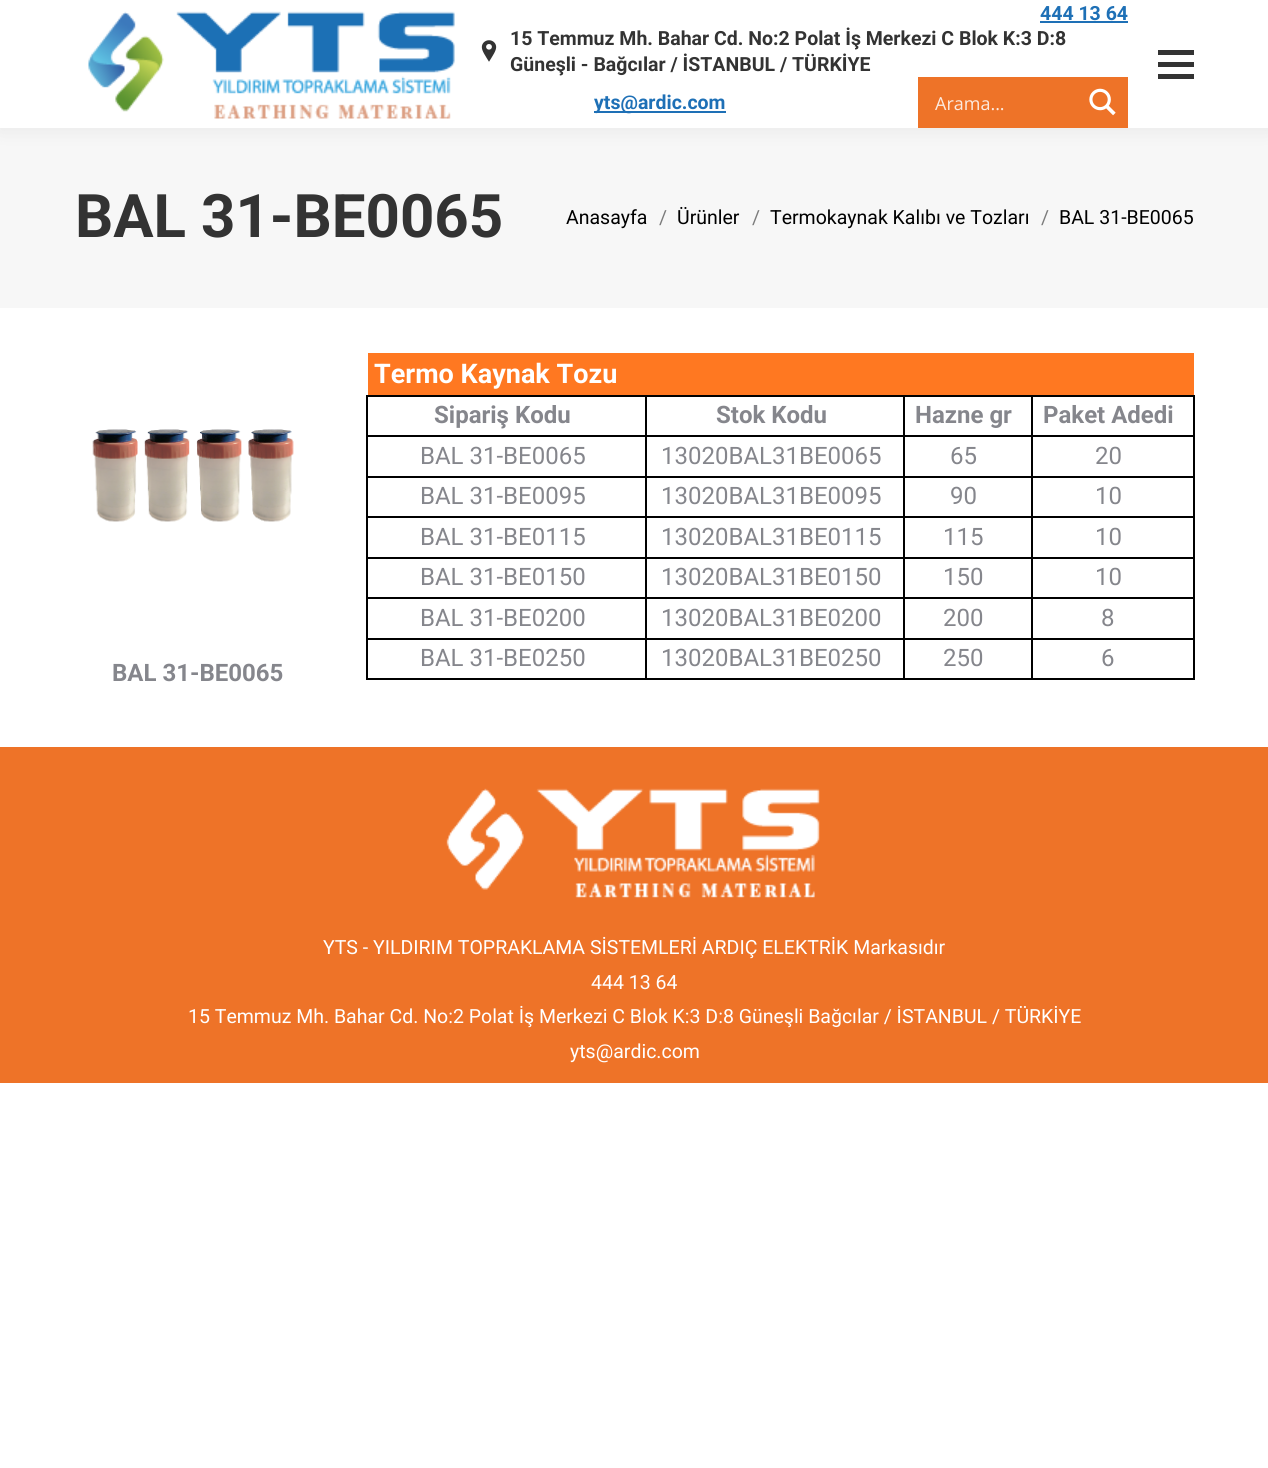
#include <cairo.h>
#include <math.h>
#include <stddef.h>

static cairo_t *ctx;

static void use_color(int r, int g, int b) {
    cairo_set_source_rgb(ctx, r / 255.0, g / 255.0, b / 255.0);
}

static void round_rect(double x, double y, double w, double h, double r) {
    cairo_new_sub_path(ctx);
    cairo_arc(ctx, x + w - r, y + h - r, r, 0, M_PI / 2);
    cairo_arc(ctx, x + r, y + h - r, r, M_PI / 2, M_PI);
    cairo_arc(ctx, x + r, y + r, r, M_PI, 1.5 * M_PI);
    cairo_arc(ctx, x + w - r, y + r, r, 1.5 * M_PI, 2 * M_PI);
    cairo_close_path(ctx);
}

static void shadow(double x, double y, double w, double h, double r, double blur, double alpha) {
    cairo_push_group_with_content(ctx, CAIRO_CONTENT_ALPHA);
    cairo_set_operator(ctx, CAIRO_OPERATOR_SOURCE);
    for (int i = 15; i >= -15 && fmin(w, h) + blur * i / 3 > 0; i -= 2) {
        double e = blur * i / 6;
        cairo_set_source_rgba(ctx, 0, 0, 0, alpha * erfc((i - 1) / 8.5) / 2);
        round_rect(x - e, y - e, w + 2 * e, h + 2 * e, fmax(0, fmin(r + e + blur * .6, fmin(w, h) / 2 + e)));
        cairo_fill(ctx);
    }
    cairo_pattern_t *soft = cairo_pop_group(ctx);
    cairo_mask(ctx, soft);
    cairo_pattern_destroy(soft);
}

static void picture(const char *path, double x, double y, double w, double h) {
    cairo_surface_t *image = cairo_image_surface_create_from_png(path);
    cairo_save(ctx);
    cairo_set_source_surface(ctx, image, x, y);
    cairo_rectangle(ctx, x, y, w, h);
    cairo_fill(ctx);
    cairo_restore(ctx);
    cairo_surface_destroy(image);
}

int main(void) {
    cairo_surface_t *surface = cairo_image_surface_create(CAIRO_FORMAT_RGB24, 1268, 1468);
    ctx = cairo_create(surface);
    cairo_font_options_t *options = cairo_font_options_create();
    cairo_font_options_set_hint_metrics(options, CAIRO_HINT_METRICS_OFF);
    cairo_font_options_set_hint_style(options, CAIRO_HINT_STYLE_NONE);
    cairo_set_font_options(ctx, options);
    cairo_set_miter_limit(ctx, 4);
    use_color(255, 255, 255);
    cairo_paint(ctx);
    use_color(247, 247, 247);
    cairo_rectangle(ctx, 0, 128, 1268, 180);
    cairo_fill(ctx);
    use_color(0, 0, 0);
    shadow(-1, -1, 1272, 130, 0, 11, 0.07);
    use_color(255, 255, 255);
    cairo_rectangle(ctx, 0, 0, 1268, 128);
    cairo_fill(ctx);
    picture("img1.png", 88, 11, 367, 108);
    cairo_select_font_face(ctx, "Roboto", CAIRO_FONT_SLANT_NORMAL, CAIRO_FONT_WEIGHT_BOLD);
    cairo_set_font_size(ctx, 19.5);
    use_color(30, 112, 182);
    cairo_move_to(ctx, 1040, 20);
    cairo_show_text(ctx, "444 13 64");
    cairo_rectangle(ctx, 1040, 21, 88, 2);
    cairo_fill(ctx);
    picture("img2.png", 481, 40, 16, 22);
    use_color(51, 51, 51);
    cairo_move_to(ctx, 510, 45);
    cairo_show_text(ctx, "15 Temmuz Mh. Bahar Cd. No:2 Polat İş Merkezi C Blok K:3 D:8");
    cairo_move_to(ctx, 510, 71);
    cairo_show_text(ctx, "Güneşli - Bağcılar / İSTANBUL / TÜRKİYE");
    use_color(30, 112, 182);
    cairo_rectangle(ctx, 594, 111, 132, 2);
    cairo_fill(ctx);
    cairo_move_to(ctx, 594, 109);
    cairo_show_text(ctx, "yts@ardic.com");
    use_color(238, 115, 40);
    cairo_rectangle(ctx, 918, 77, 210, 51);
    cairo_fill(ctx);
    cairo_select_font_face(ctx, "Open Sans", CAIRO_FONT_SLANT_NORMAL, CAIRO_FONT_WEIGHT_NORMAL);
    cairo_set_font_size(ctx, 18);
    use_color(252, 234, 223);
    cairo_move_to(ctx, 935, 110);
    cairo_show_text(ctx, "Arama...");
    picture("img3.png", 1089, 88, 27, 28);
    use_color(51, 51, 51);
    cairo_rectangle(ctx, 1158, 62, 36, 5);
    cairo_fill(ctx);
    cairo_rectangle(ctx, 1158, 50, 36, 5);
    cairo_fill(ctx);
    cairo_rectangle(ctx, 1158, 74, 36, 5);
    cairo_fill(ctx);
    cairo_select_font_face(ctx, "Roboto", CAIRO_FONT_SLANT_NORMAL, CAIRO_FONT_WEIGHT_BOLD);
    cairo_set_font_size(ctx, 60);
    cairo_move_to(ctx, 75, 237);
    cairo_show_text(ctx, "BAL 31-BE0065");
    cairo_select_font_face(ctx, "Roboto", CAIRO_FONT_SLANT_NORMAL, CAIRO_FONT_WEIGHT_NORMAL);
    cairo_set_font_size(ctx, 19.5);
    use_color(0, 0, 0);
    cairo_move_to(ctx, 566, 224);
    cairo_show_text(ctx, "Anasayfa");
    use_color(124, 124, 124);
    cairo_move_to(ctx, 659, 224);
    cairo_show_text(ctx, "/");
    use_color(0, 0, 0);
    cairo_move_to(ctx, 677, 224);
    cairo_show_text(ctx, "Ürünler");
    use_color(124, 124, 124);
    cairo_move_to(ctx, 752, 224);
    cairo_show_text(ctx, "/");
    use_color(0, 0, 0);
    cairo_move_to(ctx, 770, 224);
    cairo_show_text(ctx, "Termokaynak Kalıbı ve Tozları");
    use_color(124, 124, 124);
    cairo_move_to(ctx, 1041, 224);
    cairo_show_text(ctx, "/");
    use_color(0, 0, 0);
    cairo_move_to(ctx, 1059, 224);
    cairo_show_text(ctx, "BAL 31-BE0065");
    use_color(255, 120, 33);
    cairo_rectangle(ctx, 368, 353, 826, 42);
    cairo_fill(ctx);
    cairo_select_font_face(ctx, "Roboto", CAIRO_FONT_SLANT_NORMAL, CAIRO_FONT_WEIGHT_BOLD);
    cairo_set_font_size(ctx, 27);
    use_color(255, 255, 255);
    cairo_move_to(ctx, 374, 383);
    cairo_show_text(ctx, "Termo Kaynak Tozu");
    use_color(0, 0, 0);
    cairo_rectangle(ctx, 366, 395, 828, 2);
    cairo_fill(ctx);
    cairo_rectangle(ctx, 366, 435, 828, 2);
    cairo_fill(ctx);
    cairo_rectangle(ctx, 366, 476, 828, 2);
    cairo_fill(ctx);
    cairo_rectangle(ctx, 366, 516, 828, 2);
    cairo_fill(ctx);
    cairo_rectangle(ctx, 366, 557, 828, 2);
    cairo_fill(ctx);
    cairo_rectangle(ctx, 366, 597, 828, 2);
    cairo_fill(ctx);
    cairo_rectangle(ctx, 366, 638, 828, 2);
    cairo_fill(ctx);
    cairo_rectangle(ctx, 1193, 638, 2, 42);
    cairo_fill(ctx);
    cairo_rectangle(ctx, 1031, 678, 163, 2);
    cairo_fill(ctx);
    cairo_rectangle(ctx, 1031, 638, 2, 42);
    cairo_fill(ctx);
    cairo_rectangle(ctx, 903, 678, 129, 2);
    cairo_fill(ctx);
    cairo_rectangle(ctx, 903, 638, 2, 42);
    cairo_fill(ctx);
    cairo_rectangle(ctx, 645, 678, 260, 2);
    cairo_fill(ctx);
    cairo_rectangle(ctx, 645, 638, 2, 42);
    cairo_fill(ctx);
    cairo_rectangle(ctx, 645, 597, 2, 42);
    cairo_fill(ctx);
    cairo_rectangle(ctx, 645, 557, 2, 42);
    cairo_fill(ctx);
    cairo_rectangle(ctx, 645, 516, 2, 42);
    cairo_fill(ctx);
    cairo_rectangle(ctx, 645, 476, 2, 42);
    cairo_fill(ctx);
    cairo_rectangle(ctx, 645, 435, 2, 42);
    cairo_fill(ctx);
    cairo_rectangle(ctx, 645, 395, 2, 42);
    cairo_fill(ctx);
    cairo_rectangle(ctx, 366, 678, 281, 2);
    cairo_fill(ctx);
    cairo_rectangle(ctx, 366, 638, 2, 42);
    cairo_fill(ctx);
    cairo_rectangle(ctx, 366, 597, 2, 42);
    cairo_fill(ctx);
    cairo_rectangle(ctx, 366, 557, 2, 42);
    cairo_fill(ctx);
    cairo_rectangle(ctx, 366, 516, 2, 42);
    cairo_fill(ctx);
    cairo_rectangle(ctx, 366, 476, 2, 42);
    cairo_fill(ctx);
    cairo_rectangle(ctx, 366, 435, 2, 42);
    cairo_fill(ctx);
    cairo_rectangle(ctx, 366, 395, 2, 42);
    cairo_fill(ctx);
    cairo_set_font_size(ctx, 24);
    use_color(133, 134, 140);
    cairo_move_to(ctx, 434, 423);
    cairo_show_text(ctx, "Sipariş Kodu");
    use_color(0, 0, 0);
    cairo_rectangle(ctx, 903, 597, 2, 42);
    cairo_fill(ctx);
    cairo_rectangle(ctx, 903, 557, 2, 42);
    cairo_fill(ctx);
    cairo_rectangle(ctx, 903, 516, 2, 42);
    cairo_fill(ctx);
    cairo_rectangle(ctx, 903, 476, 2, 42);
    cairo_fill(ctx);
    cairo_rectangle(ctx, 903, 435, 2, 42);
    cairo_fill(ctx);
    cairo_rectangle(ctx, 903, 395, 2, 42);
    cairo_fill(ctx);
    use_color(133, 134, 140);
    cairo_move_to(ctx, 716, 423);
    cairo_show_text(ctx, "Stok Kodu");
    use_color(0, 0, 0);
    cairo_rectangle(ctx, 1031, 597, 2, 42);
    cairo_fill(ctx);
    cairo_rectangle(ctx, 1031, 557, 2, 42);
    cairo_fill(ctx);
    cairo_rectangle(ctx, 1031, 516, 2, 42);
    cairo_fill(ctx);
    cairo_rectangle(ctx, 1031, 476, 2, 42);
    cairo_fill(ctx);
    cairo_rectangle(ctx, 1031, 435, 2, 42);
    cairo_fill(ctx);
    cairo_rectangle(ctx, 1031, 395, 2, 42);
    cairo_fill(ctx);
    use_color(133, 134, 140);
    cairo_move_to(ctx, 915, 423);
    cairo_show_text(ctx, "Hazne gr");
    use_color(0, 0, 0);
    cairo_rectangle(ctx, 1193, 597, 2, 42);
    cairo_fill(ctx);
    cairo_rectangle(ctx, 1193, 557, 2, 42);
    cairo_fill(ctx);
    cairo_rectangle(ctx, 1193, 516, 2, 42);
    cairo_fill(ctx);
    cairo_rectangle(ctx, 1193, 476, 2, 42);
    cairo_fill(ctx);
    cairo_rectangle(ctx, 1193, 435, 2, 42);
    cairo_fill(ctx);
    cairo_rectangle(ctx, 1193, 395, 2, 42);
    cairo_fill(ctx);
    use_color(133, 134, 140);
    cairo_move_to(ctx, 1043, 423);
    cairo_show_text(ctx, "Paket Adedi");
    cairo_select_font_face(ctx, "Roboto", CAIRO_FONT_SLANT_NORMAL, CAIRO_FONT_WEIGHT_NORMAL);
    cairo_move_to(ctx, 420, 464);
    cairo_show_text(ctx, "BAL 31-BE0065");
    cairo_move_to(ctx, 661, 464);
    cairo_show_text(ctx, "13020BAL31BE0065");
    cairo_move_to(ctx, 950, 464);
    cairo_show_text(ctx, "65");
    cairo_move_to(ctx, 1095, 464);
    cairo_show_text(ctx, "20");
    cairo_move_to(ctx, 420, 504);
    cairo_show_text(ctx, "BAL 31-BE0095");
    cairo_move_to(ctx, 661, 504);
    cairo_show_text(ctx, "13020BAL31BE0095");
    cairo_move_to(ctx, 950, 504);
    cairo_show_text(ctx, "90");
    cairo_move_to(ctx, 1095, 504);
    cairo_show_text(ctx, "10");
    cairo_move_to(ctx, 420, 545);
    cairo_show_text(ctx, "BAL 31-BE0115");
    cairo_move_to(ctx, 661, 545);
    cairo_show_text(ctx, "13020BAL31BE0115");
    cairo_move_to(ctx, 943, 545);
    cairo_show_text(ctx, "115");
    cairo_move_to(ctx, 1095, 545);
    cairo_show_text(ctx, "10");
    cairo_move_to(ctx, 420, 585);
    cairo_show_text(ctx, "BAL 31-BE0150");
    cairo_move_to(ctx, 661, 585);
    cairo_show_text(ctx, "13020BAL31BE0150");
    cairo_move_to(ctx, 943, 585);
    cairo_show_text(ctx, "150");
    cairo_move_to(ctx, 1095, 585);
    cairo_show_text(ctx, "10");
    cairo_move_to(ctx, 420, 626);
    cairo_show_text(ctx, "BAL 31-BE0200");
    cairo_move_to(ctx, 661, 626);
    cairo_show_text(ctx, "13020BAL31BE0200");
    cairo_move_to(ctx, 943, 626);
    cairo_show_text(ctx, "200");
    cairo_move_to(ctx, 1101, 626);
    cairo_show_text(ctx, "8");
    cairo_move_to(ctx, 420, 666);
    cairo_show_text(ctx, "BAL 31-BE0250");
    cairo_move_to(ctx, 661, 666);
    cairo_show_text(ctx, "13020BAL31BE0250");
    cairo_move_to(ctx, 943, 666);
    cairo_show_text(ctx, "250");
    cairo_move_to(ctx, 1101, 666);
    cairo_show_text(ctx, "6");
    picture("img4.png", 92, 429, 202, 93);
    cairo_select_font_face(ctx, "Roboto", CAIRO_FONT_SLANT_NORMAL, CAIRO_FONT_WEIGHT_BOLD);
    cairo_move_to(ctx, 112, 681);
    cairo_show_text(ctx, "BAL 31-BE0065");
    use_color(238, 115, 40);
    cairo_rectangle(ctx, 0, 747, 1268, 336);
    cairo_fill(ctx);
    picture("img5.png", 446, 788, 374, 110);
    cairo_select_font_face(ctx, "Roboto", CAIRO_FONT_SLANT_NORMAL, CAIRO_FONT_WEIGHT_NORMAL);
    cairo_set_font_size(ctx, 19.5);
    use_color(255, 255, 255);
    cairo_move_to(ctx, 323, 954);
    cairo_show_text(ctx, "YTS - YILDIRIM TOPRAKLAMA SİSTEMLERİ ARDIÇ ELEKTRİK Markasıdır");
    cairo_move_to(ctx, 591, 989);
    cairo_show_text(ctx, "444 13 64");
    cairo_move_to(ctx, 188, 1023);
    cairo_show_text(ctx, "15 Temmuz Mh. Bahar Cd. No:2 Polat İş Merkezi C Blok K:3 D:8 Güneşli Bağcılar / İSTANBUL / TÜRKİYE");
    cairo_move_to(ctx, 570, 1058);
    cairo_show_text(ctx, "yts@ardic.com");
    cairo_surface_write_to_png(surface, "result.png");
    cairo_font_options_destroy(options);
    cairo_destroy(ctx);
    cairo_surface_destroy(surface);
    return 0;
}
